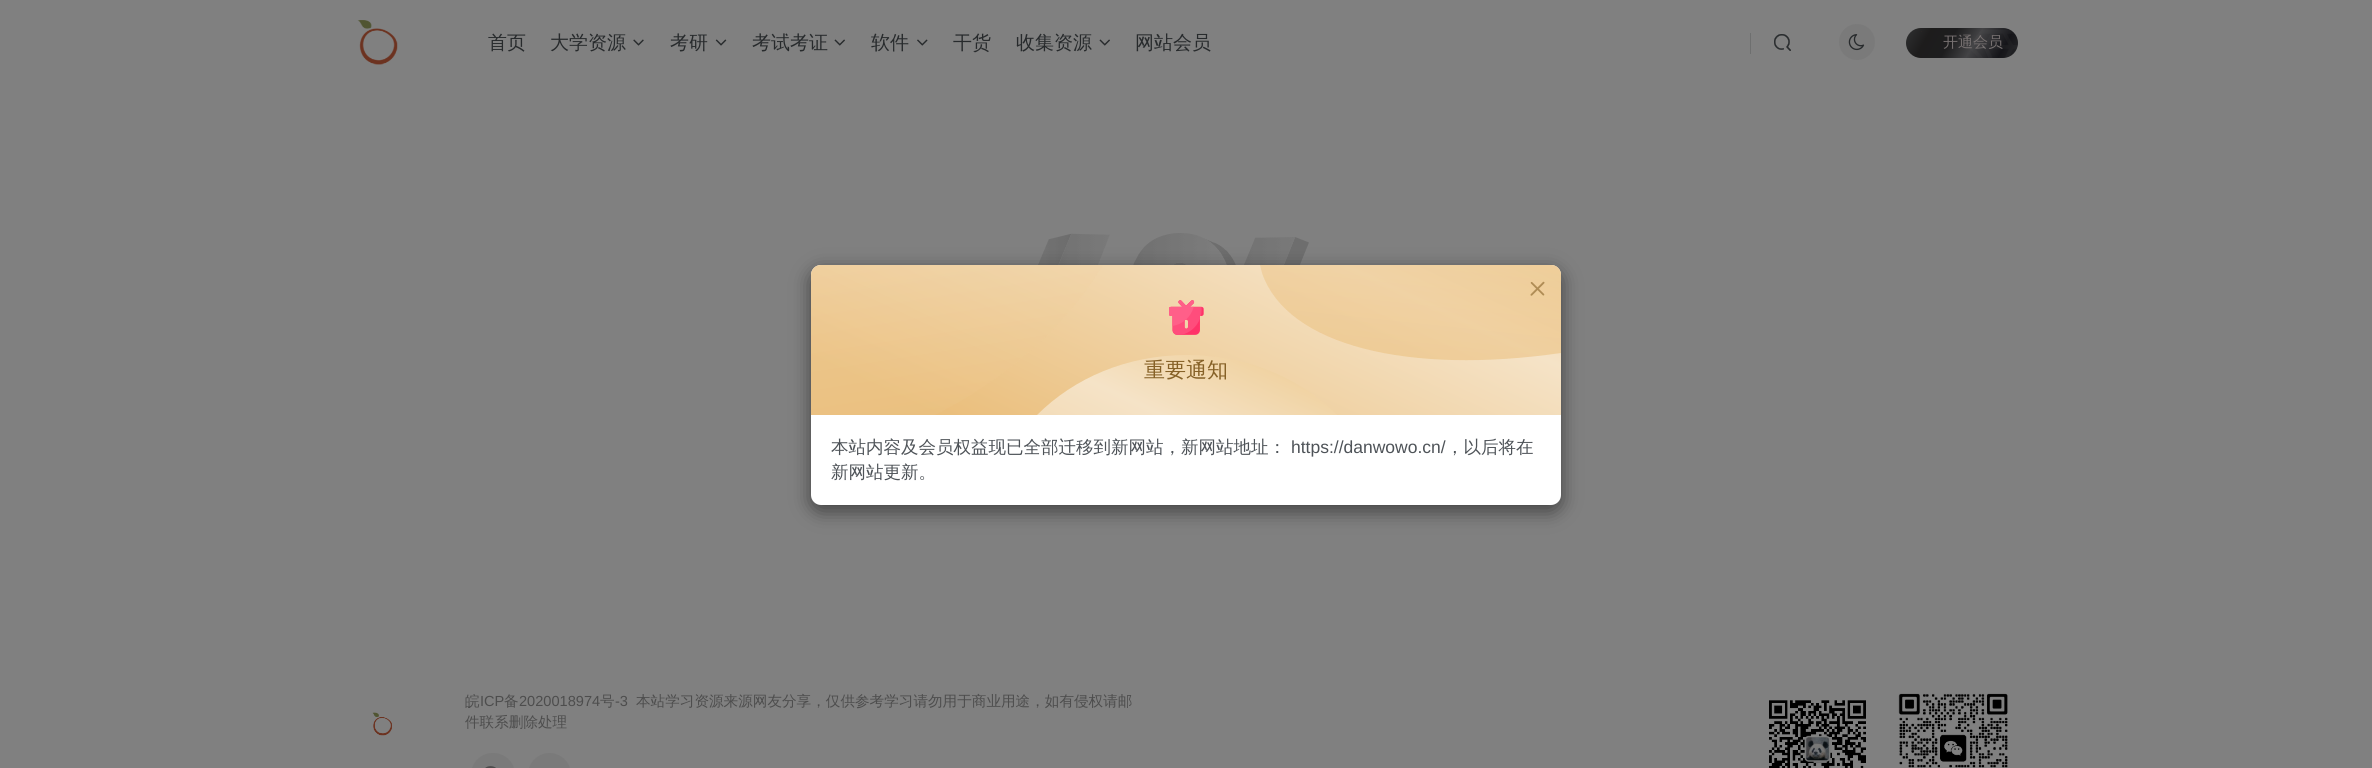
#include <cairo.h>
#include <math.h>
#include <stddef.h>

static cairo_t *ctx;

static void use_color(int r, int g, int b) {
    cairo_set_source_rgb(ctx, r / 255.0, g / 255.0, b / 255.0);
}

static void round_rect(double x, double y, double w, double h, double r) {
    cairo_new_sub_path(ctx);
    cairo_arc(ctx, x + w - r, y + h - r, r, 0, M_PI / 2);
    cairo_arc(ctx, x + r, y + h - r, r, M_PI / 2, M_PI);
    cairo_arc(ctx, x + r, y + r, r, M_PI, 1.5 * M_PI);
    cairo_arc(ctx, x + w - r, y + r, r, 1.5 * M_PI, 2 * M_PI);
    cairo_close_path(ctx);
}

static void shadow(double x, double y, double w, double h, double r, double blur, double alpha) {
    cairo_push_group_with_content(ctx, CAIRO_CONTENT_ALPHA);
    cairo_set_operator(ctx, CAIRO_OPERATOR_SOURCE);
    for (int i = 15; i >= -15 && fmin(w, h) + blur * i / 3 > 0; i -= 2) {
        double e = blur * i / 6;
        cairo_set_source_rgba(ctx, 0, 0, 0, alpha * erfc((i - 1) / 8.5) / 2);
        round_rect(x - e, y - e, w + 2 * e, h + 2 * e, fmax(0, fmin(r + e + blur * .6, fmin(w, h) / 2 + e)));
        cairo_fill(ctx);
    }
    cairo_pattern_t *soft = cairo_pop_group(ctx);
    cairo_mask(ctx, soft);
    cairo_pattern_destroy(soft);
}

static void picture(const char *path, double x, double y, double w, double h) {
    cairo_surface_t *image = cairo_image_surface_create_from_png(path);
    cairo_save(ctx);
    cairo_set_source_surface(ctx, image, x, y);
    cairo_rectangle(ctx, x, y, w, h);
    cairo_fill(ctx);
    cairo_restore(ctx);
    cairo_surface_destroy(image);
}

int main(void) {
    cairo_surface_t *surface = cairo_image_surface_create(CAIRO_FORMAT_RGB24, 2372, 768);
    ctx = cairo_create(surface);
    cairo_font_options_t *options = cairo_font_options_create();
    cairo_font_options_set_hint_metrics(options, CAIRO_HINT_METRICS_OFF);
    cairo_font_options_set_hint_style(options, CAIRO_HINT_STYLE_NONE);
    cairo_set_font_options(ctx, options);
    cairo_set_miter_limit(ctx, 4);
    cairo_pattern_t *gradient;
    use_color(128, 128, 128);
    cairo_paint(ctx);
    picture("img1.png", 357, 20, 41, 45);
    cairo_select_font_face(ctx, "WenQuanYi Zen Hei Medium", CAIRO_FONT_SLANT_NORMAL, CAIRO_FONT_WEIGHT_NORMAL);
    cairo_set_font_size(ctx, 19);
    use_color(39, 42, 44);
    cairo_move_to(ctx, 488, 49);
    cairo_show_text(ctx, "首页");
    cairo_move_to(ctx, 550, 49);
    cairo_show_text(ctx, "大学资源");
    picture("img2.png", 633, 39, 11, 7);
    cairo_move_to(ctx, 670, 49);
    cairo_show_text(ctx, "考研");
    picture("img3.png", 715, 39, 12, 7);
    cairo_move_to(ctx, 752, 49);
    cairo_show_text(ctx, "考试考证");
    picture("img4.png", 834, 39, 11, 7);
    cairo_move_to(ctx, 871, 49);
    cairo_show_text(ctx, "软件");
    picture("img5.png", 917, 39, 11, 7);
    cairo_move_to(ctx, 953, 49);
    cairo_show_text(ctx, "干货");
    cairo_move_to(ctx, 1016, 49);
    cairo_show_text(ctx, "收集资源");
    picture("img4.png", 1099, 39, 11, 7);
    cairo_move_to(ctx, 1135, 49);
    cairo_show_text(ctx, "网站会员");
    use_color(110, 111, 111);
    cairo_rectangle(ctx, 1750, 33, 1, 21);
    cairo_fill(ctx);
    picture("img6.png", 1774, 34, 17, 17);
    use_color(122, 122, 122);
    cairo_arc(ctx, 1857, 42, 18, 0, 2 * M_PI);
    cairo_fill(ctx);
    picture("img7.png", 1848, 34, 17, 17);
    gradient = cairo_pattern_create_linear(2010, 70, 1914, 15);
    cairo_pattern_add_color_stop_rgba(gradient, 0, 0.149, 0.153, 0.161, 1);
    cairo_pattern_add_color_stop_rgba(gradient, 0.15, 0.082, 0.082, 0.098, 1);
    cairo_pattern_add_color_stop_rgba(gradient, 0.4, 0.263, 0.263, 0.271, 1);
    cairo_pattern_add_color_stop_rgba(gradient, 0.6, 0.114, 0.114, 0.118, 1);
    cairo_pattern_add_color_stop_rgba(gradient, 0.8, 0.114, 0.11, 0.11, 1);
    cairo_pattern_add_color_stop_rgba(gradient, 1, 0.184, 0.188, 0.192, 1);
    cairo_set_source(ctx, gradient);
    cairo_pattern_destroy(gradient);
    round_rect(1906, 28, 112, 30, 15);
    cairo_fill(ctx);
    use_color(41, 37, 35);
    cairo_rectangle(ctx, 1921, 31, 1, 1);
    cairo_fill(ctx);
    cairo_set_font_size(ctx, 15);
    use_color(118, 112, 112);
    cairo_move_to(ctx, 1943, 47);
    cairo_show_text(ctx, "开通会员");
    picture("img8.png", 1969, 30, 49, 28);
    picture("img9.png", 1038, 233, 271, 32);
    use_color(0, 0, 0);
    shadow(811, 271, 750, 240, 10, 9.5, 0.5);
    use_color(255, 255, 255);
    round_rect(811, 265, 750, 240, 10);
    cairo_fill(ctx);
    gradient = cairo_pattern_create_linear(1152, 574, 1370, 106);
    cairo_pattern_add_color_stop_rgba(gradient, 0.1, 0.918, 0.745, 0.482, 1);
    cairo_pattern_add_color_stop_rgba(gradient, 0.7, 0.961, 0.89, 0.78, 1);
    cairo_pattern_add_color_stop_rgba(gradient, 1, 0.929, 0.78, 0.533, 1);
    cairo_set_source(ctx, gradient);
    cairo_pattern_destroy(gradient);
    cairo_new_path(ctx);
    cairo_move_to(ctx, 821, 265);
    cairo_line_to(ctx, 1551, 265);
    cairo_curve_to(ctx, 1556.5, 265, 1561, 269.5, 1561, 275);
    cairo_line_to(ctx, 1561, 415);
    cairo_line_to(ctx, 811, 415);
    cairo_line_to(ctx, 811, 275);
    cairo_curve_to(ctx, 811, 269.5, 815.5, 265, 821, 265);
    cairo_close_path(ctx);
    cairo_fill(ctx);
    gradient = cairo_pattern_create_linear(1081, 762, 1292, 310);
    cairo_pattern_add_color_stop_rgba(gradient, 0.1, 0.918, 0.745, 0.482, 1);
    cairo_pattern_add_color_stop_rgba(gradient, 0.7, 0.961, 0.89, 0.78, 1);
    cairo_pattern_add_color_stop_rgba(gradient, 1, 0.929, 0.78, 0.533, 1);
    cairo_set_source(ctx, gradient);
    cairo_pattern_destroy(gradient);
    cairo_new_path(ctx);
    cairo_move_to(ctx, 1187, 355);
    cairo_curve_to(ctx, 1247, 355, 1300, 378, 1337, 415);
    cairo_line_to(ctx, 1037, 415);
    cairo_curve_to(ctx, 1074, 378, 1127, 355, 1187, 355);
    cairo_close_path(ctx);
    cairo_fill(ctx);
    gradient = cairo_pattern_create_linear(944, 500, 873, 51);
    cairo_pattern_add_color_stop_rgba(gradient, 0.1, 0.918, 0.745, 0.482, 0.4);
    cairo_pattern_add_color_stop_rgba(gradient, 0.7, 0.961, 0.89, 0.78, 0.4);
    cairo_pattern_add_color_stop_rgba(gradient, 1, 0.929, 0.78, 0.533, 0.4);
    cairo_set_source(ctx, gradient);
    cairo_pattern_destroy(gradient);
    cairo_new_path(ctx);
    cairo_move_to(ctx, 821, 265);
    cairo_line_to(ctx, 1103, 265);
    cairo_curve_to(ctx, 1069, 322, 1016, 369, 959, 402);
    cairo_line_to(ctx, 935, 415);
    cairo_line_to(ctx, 811, 415);
    cairo_line_to(ctx, 811, 275);
    cairo_curve_to(ctx, 811, 269, 815, 265, 821, 265);
    cairo_close_path(ctx);
    cairo_fill(ctx);
    gradient = cairo_pattern_create_linear(1626, 482, 1699, -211);
    cairo_pattern_add_color_stop_rgba(gradient, 0.1, 0.918, 0.745, 0.482, 0.6);
    cairo_pattern_add_color_stop_rgba(gradient, 0.7, 0.961, 0.89, 0.78, 0.6);
    cairo_pattern_add_color_stop_rgba(gradient, 1, 0.929, 0.78, 0.533, 0.6);
    cairo_set_source(ctx, gradient);
    cairo_pattern_destroy(gradient);
    cairo_new_path(ctx);
    cairo_move_to(ctx, 1561, 353);
    cairo_curve_to(ctx, 1409, 375, 1287, 346, 1262, 273);
    cairo_line_to(ctx, 1260, 265);
    cairo_line_to(ctx, 1551, 265);
    cairo_curve_to(ctx, 1557, 265, 1561, 269, 1561, 275);
    cairo_close_path(ctx);
    cairo_fill(ctx);
    picture("img10.png", 1530, 281, 15, 15);
    picture("img11.png", 1169, 300, 35, 35);
    cairo_set_font_size(ctx, 21);
    use_color(134, 97, 39);
    cairo_move_to(ctx, 1144, 377);
    cairo_show_text(ctx, "重要通知");
    cairo_set_font_size(ctx, 17.5);
    use_color(78, 83, 88);
    cairo_move_to(ctx, 831, 453);
    cairo_show_text(ctx, "本站内容及会员权益现已全部迁移到新网站，新网站地址：");
    cairo_select_font_face(ctx, "Liberation Sans", CAIRO_FONT_SLANT_NORMAL, CAIRO_FONT_WEIGHT_NORMAL);
    cairo_move_to(ctx, 1291, 453);
    cairo_show_text(ctx, "https://danwowo.cn/");
    cairo_select_font_face(ctx, "WenQuanYi Zen Hei Medium", CAIRO_FONT_SLANT_NORMAL, CAIRO_FONT_WEIGHT_NORMAL);
    cairo_move_to(ctx, 1446, 453);
    cairo_show_text(ctx, "，以后将在");
    cairo_move_to(ctx, 831, 478);
    cairo_show_text(ctx, "新网站更新。");
    picture("img12.png", 372, 712, 20, 24);
    cairo_set_font_size(ctx, 14.6);
    use_color(77, 77, 77);
    cairo_move_to(ctx, 465, 706);
    cairo_show_text(ctx, "皖");
    cairo_select_font_face(ctx, "Liberation Sans", CAIRO_FONT_SLANT_NORMAL, CAIRO_FONT_WEIGHT_NORMAL);
    cairo_move_to(ctx, 480, 706);
    cairo_show_text(ctx, "ICP");
    cairo_select_font_face(ctx, "WenQuanYi Zen Hei Medium", CAIRO_FONT_SLANT_NORMAL, CAIRO_FONT_WEIGHT_NORMAL);
    cairo_move_to(ctx, 504, 706);
    cairo_show_text(ctx, "备");
    cairo_select_font_face(ctx, "Liberation Sans", CAIRO_FONT_SLANT_NORMAL, CAIRO_FONT_WEIGHT_NORMAL);
    cairo_move_to(ctx, 519, 706);
    cairo_show_text(ctx, "2020018974");
    cairo_select_font_face(ctx, "WenQuanYi Zen Hei Medium", CAIRO_FONT_SLANT_NORMAL, CAIRO_FONT_WEIGHT_NORMAL);
    cairo_move_to(ctx, 600, 706);
    cairo_show_text(ctx, "号");
    cairo_select_font_face(ctx, "Liberation Sans", CAIRO_FONT_SLANT_NORMAL, CAIRO_FONT_WEIGHT_NORMAL);
    cairo_move_to(ctx, 615, 706);
    cairo_show_text(ctx, "-3");
    cairo_select_font_face(ctx, "WenQuanYi Zen Hei Medium", CAIRO_FONT_SLANT_NORMAL, CAIRO_FONT_WEIGHT_NORMAL);
    cairo_move_to(ctx, 636, 706);
    cairo_show_text(ctx, "本站学习资源来源网友分享，仅供参考学习请勿用于商业用途，如有侵权请邮");
    cairo_move_to(ctx, 465, 727);
    cairo_show_text(ctx, "件联系删除处理");
    use_color(122, 122, 122);
    round_rect(471, 753, 44, 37, 21.5);
    cairo_fill(ctx);
    picture("img13.png", 485, 766, 11, 2);
    round_rect(528, 753, 43, 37, 21.5);
    cairo_fill(ctx);
    picture("img14.png", 1769, 700, 97, 68);
    picture("img15.png", 1898, 693, 110, 75);
    cairo_surface_write_to_png(surface, "result.png");
    cairo_font_options_destroy(options);
    cairo_destroy(ctx);
    cairo_surface_destroy(surface);
    return 0;
}
